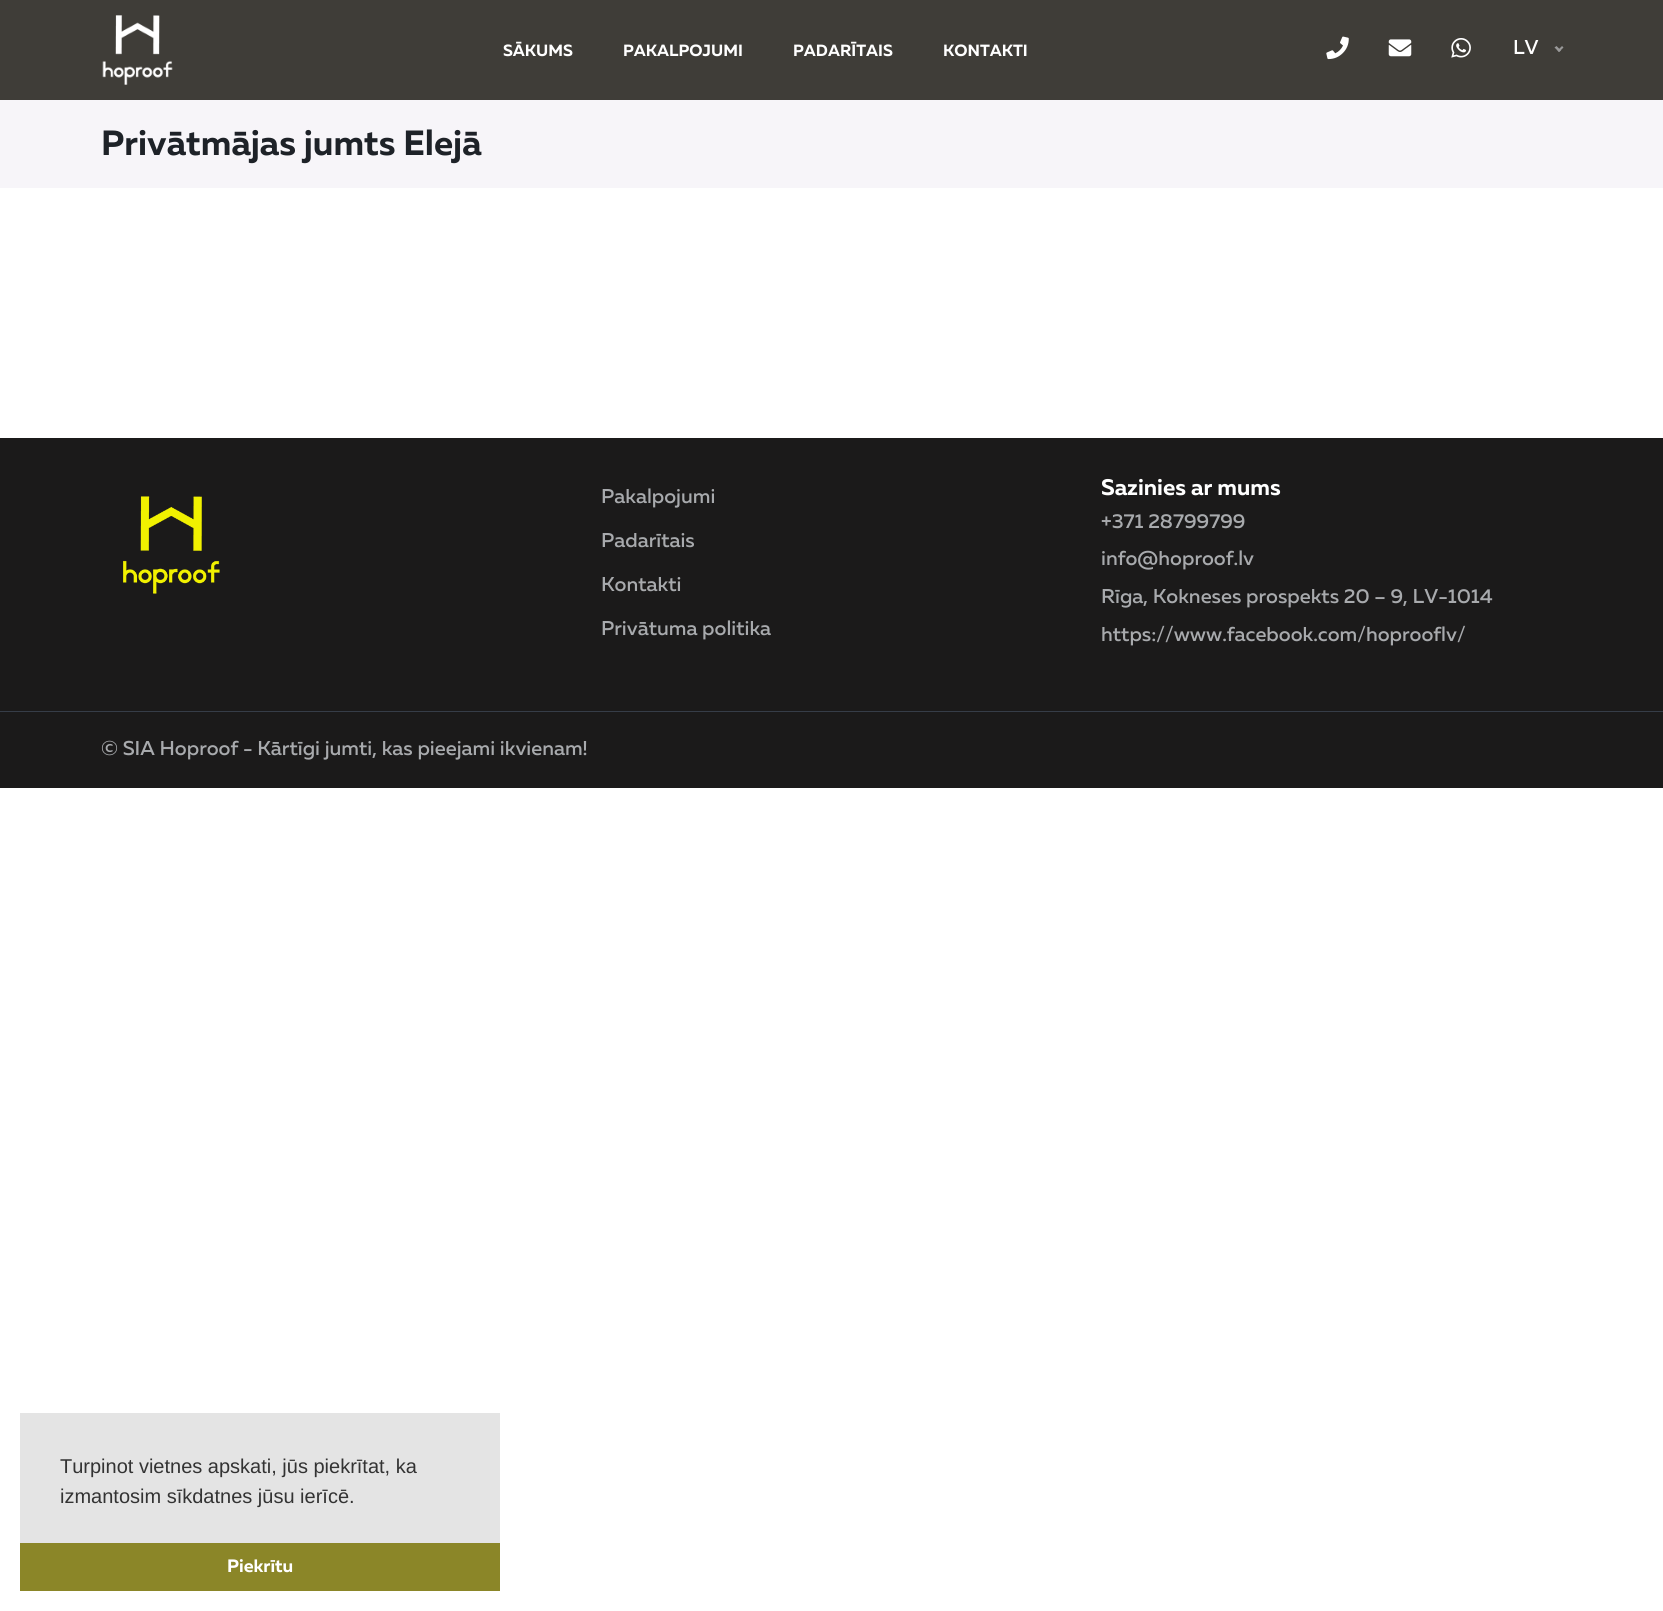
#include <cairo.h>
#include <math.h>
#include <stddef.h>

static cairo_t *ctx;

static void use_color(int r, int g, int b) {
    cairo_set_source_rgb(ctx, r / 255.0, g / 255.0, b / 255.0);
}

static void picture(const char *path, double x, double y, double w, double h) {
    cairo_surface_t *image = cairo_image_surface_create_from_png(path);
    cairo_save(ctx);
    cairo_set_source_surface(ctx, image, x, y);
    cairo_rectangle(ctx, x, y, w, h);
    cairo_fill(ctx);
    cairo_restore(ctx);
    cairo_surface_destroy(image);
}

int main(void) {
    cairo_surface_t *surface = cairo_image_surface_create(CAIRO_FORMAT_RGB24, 1663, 1611);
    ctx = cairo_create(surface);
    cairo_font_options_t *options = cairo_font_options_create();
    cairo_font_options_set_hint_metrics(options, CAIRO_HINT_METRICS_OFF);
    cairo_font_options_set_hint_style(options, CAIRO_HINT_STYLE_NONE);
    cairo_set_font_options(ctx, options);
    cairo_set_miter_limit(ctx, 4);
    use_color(255, 255, 255);
    cairo_paint(ctx);
    use_color(63, 61, 56);
    cairo_rectangle(ctx, 0, 0, 1663, 100);
    cairo_fill(ctx);
    picture("img1.png", 102, 15, 71, 70);
    cairo_select_font_face(ctx, "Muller", CAIRO_FONT_SLANT_NORMAL, CAIRO_FONT_WEIGHT_BOLD);
    cairo_set_font_size(ctx, 16.25);
    use_color(255, 255, 255);
    cairo_move_to(ctx, 503, 56);
    cairo_show_text(ctx, "SĀKUMS");
    cairo_move_to(ctx, 623, 56);
    cairo_show_text(ctx, "PAKALPOJUMI");
    cairo_move_to(ctx, 793, 56);
    cairo_show_text(ctx, "PADARĪTAIS");
    cairo_move_to(ctx, 943, 56);
    cairo_show_text(ctx, "KONTAKTI");
    picture("img2.png", 1326, 36, 23, 24);
    picture("img3.png", 1388, 39, 24, 18);
    picture("img4.png", 1451, 38, 20, 20);
    cairo_select_font_face(ctx, "Muller Medium", CAIRO_FONT_SLANT_NORMAL, CAIRO_FONT_WEIGHT_NORMAL);
    cairo_set_font_size(ctx, 20);
    cairo_move_to(ctx, 1513, 54);
    cairo_show_text(ctx, "LV");
    use_color(153, 153, 153);
    cairo_new_path(ctx);
    cairo_move_to(ctx, 1562, 46);
    cairo_line_to(ctx, 1563.5, 47.5);
    cairo_line_to(ctx, 1559, 52);
    cairo_line_to(ctx, 1557.5, 50.5);
    cairo_close_path(ctx);
    cairo_fill(ctx);
    cairo_new_path(ctx);
    cairo_move_to(ctx, 1556.5, 46);
    cairo_line_to(ctx, 1561, 50.5);
    cairo_line_to(ctx, 1559, 52);
    cairo_line_to(ctx, 1554.5, 47.5);
    cairo_close_path(ctx);
    cairo_fill(ctx);
    use_color(247, 245, 249);
    cairo_rectangle(ctx, 0, 100, 1663, 88);
    cairo_fill(ctx);
    cairo_select_font_face(ctx, "Muller", CAIRO_FONT_SLANT_NORMAL, CAIRO_FONT_WEIGHT_BOLD);
    cairo_set_font_size(ctx, 35);
    use_color(30, 34, 40);
    cairo_move_to(ctx, 101, 155);
    cairo_show_text(ctx, "Privātmājas jumts Elejā");
    use_color(27, 26, 26);
    cairo_rectangle(ctx, 0, 438, 1663, 273);
    cairo_fill(ctx);
    picture("img5.png", 123, 496, 97, 98);
    cairo_select_font_face(ctx, "Muller Medium", CAIRO_FONT_SLANT_NORMAL, CAIRO_FONT_WEIGHT_NORMAL);
    cairo_set_font_size(ctx, 20);
    use_color(168, 170, 173);
    cairo_move_to(ctx, 601, 503);
    cairo_show_text(ctx, "Pakalpojumi");
    cairo_move_to(ctx, 601, 547);
    cairo_show_text(ctx, "Padarītais");
    cairo_move_to(ctx, 601, 591);
    cairo_show_text(ctx, "Kontakti");
    cairo_move_to(ctx, 601, 635);
    cairo_show_text(ctx, "Privātuma politika");
    cairo_select_font_face(ctx, "Muller", CAIRO_FONT_SLANT_NORMAL, CAIRO_FONT_WEIGHT_BOLD);
    cairo_set_font_size(ctx, 22.5);
    use_color(255, 255, 255);
    cairo_move_to(ctx, 1101, 495);
    cairo_show_text(ctx, "Sazinies ar mums");
    cairo_select_font_face(ctx, "Muller Medium", CAIRO_FONT_SLANT_NORMAL, CAIRO_FONT_WEIGHT_NORMAL);
    cairo_set_font_size(ctx, 20);
    use_color(168, 170, 173);
    cairo_move_to(ctx, 1101, 528);
    cairo_show_text(ctx, "+371 28799799");
    cairo_move_to(ctx, 1101, 565);
    cairo_show_text(ctx, "info@hoproof.lv");
    cairo_move_to(ctx, 1101, 603);
    cairo_show_text(ctx, "Rīga, Kokneses prospekts 20 – 9, LV-1014");
    cairo_move_to(ctx, 1101, 641);
    cairo_show_text(ctx, "https://www.facebook.com/hoprooflv/");
    use_color(27, 26, 26);
    cairo_rectangle(ctx, 0, 712, 1663, 76);
    cairo_fill(ctx);
    use_color(54, 61, 72);
    cairo_rectangle(ctx, 0, 711, 1663, 1);
    cairo_fill(ctx);
    use_color(168, 170, 173);
    cairo_move_to(ctx, 101, 755);
    cairo_show_text(ctx, "© SIA Hoproof - Kārtīgi jumti, kas pieejami ikvienam!");
    use_color(228, 228, 228);
    cairo_rectangle(ctx, 20, 1413, 480, 130);
    cairo_fill(ctx);
    cairo_select_font_face(ctx, "Liberation Sans", CAIRO_FONT_SLANT_NORMAL, CAIRO_FONT_WEIGHT_NORMAL);
    use_color(51, 51, 51);
    cairo_move_to(ctx, 60, 1473);
    cairo_show_text(ctx, "Turpinot vietnes apskati, jūs piekrītat, ka");
    cairo_move_to(ctx, 60, 1503);
    cairo_show_text(ctx, "izmantosim sīkdatnes jūsu ierīcē.");
    use_color(139, 134, 40);
    cairo_rectangle(ctx, 20, 1543, 480, 48);
    cairo_fill(ctx);
    cairo_select_font_face(ctx, "Muller", CAIRO_FONT_SLANT_NORMAL, CAIRO_FONT_WEIGHT_BOLD);
    cairo_set_font_size(ctx, 18);
    use_color(255, 255, 255);
    cairo_move_to(ctx, 227, 1572);
    cairo_show_text(ctx, "Piekrītu");
    cairo_surface_write_to_png(surface, "result.png");
    cairo_font_options_destroy(options);
    cairo_destroy(ctx);
    cairo_surface_destroy(surface);
    return 0;
}
